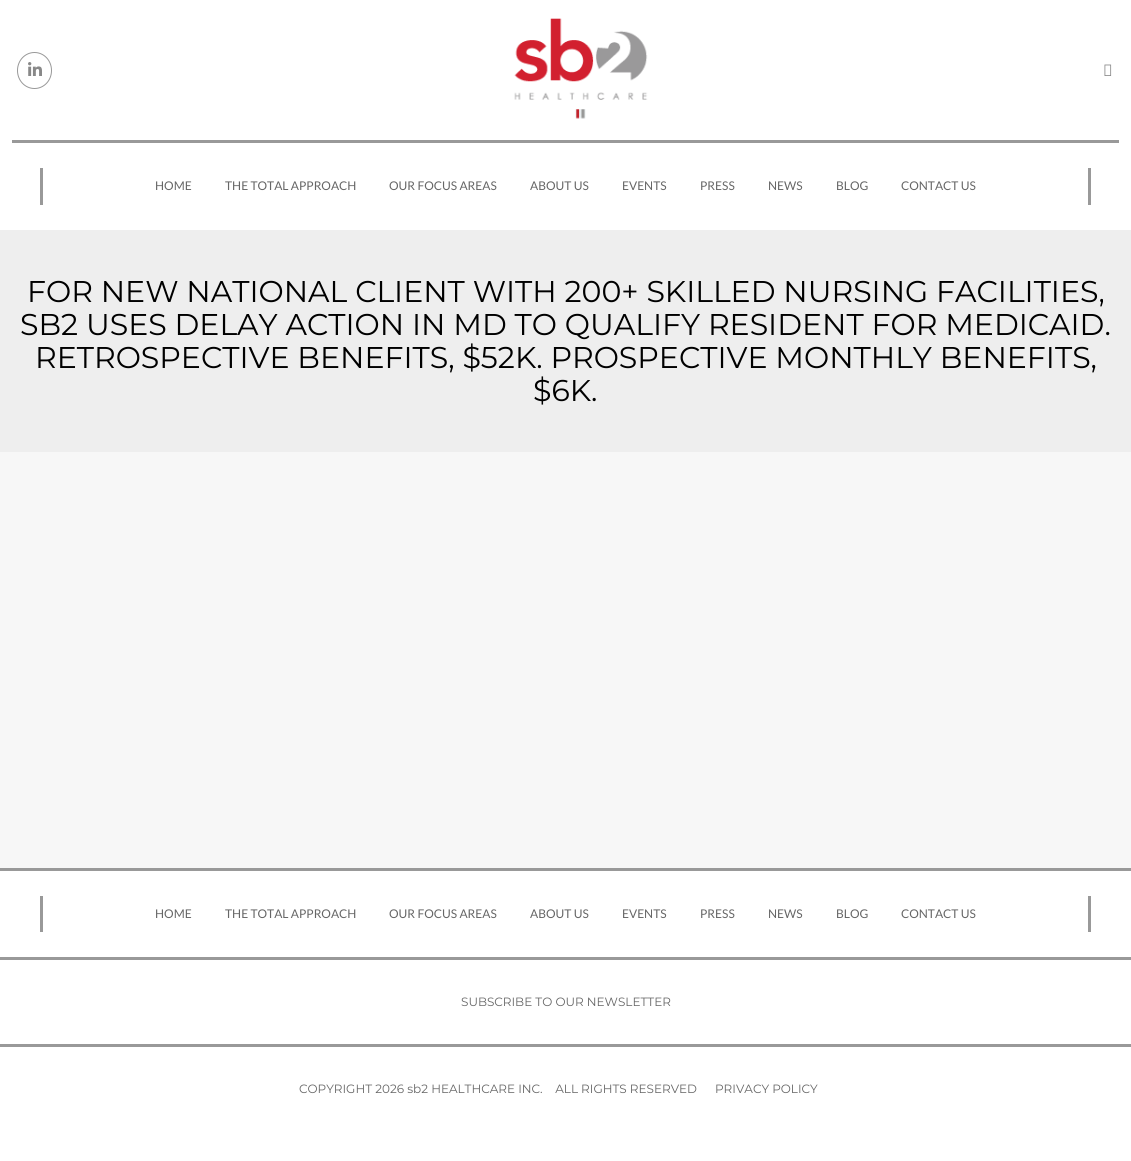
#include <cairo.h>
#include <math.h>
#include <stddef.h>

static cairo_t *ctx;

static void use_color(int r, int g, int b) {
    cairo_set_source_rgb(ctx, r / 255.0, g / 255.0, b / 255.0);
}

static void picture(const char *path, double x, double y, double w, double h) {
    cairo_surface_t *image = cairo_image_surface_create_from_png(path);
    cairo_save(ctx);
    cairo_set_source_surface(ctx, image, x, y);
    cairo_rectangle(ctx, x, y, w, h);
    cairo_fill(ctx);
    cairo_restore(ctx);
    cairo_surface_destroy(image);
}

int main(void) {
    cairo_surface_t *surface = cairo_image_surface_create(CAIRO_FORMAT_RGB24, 1131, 1161);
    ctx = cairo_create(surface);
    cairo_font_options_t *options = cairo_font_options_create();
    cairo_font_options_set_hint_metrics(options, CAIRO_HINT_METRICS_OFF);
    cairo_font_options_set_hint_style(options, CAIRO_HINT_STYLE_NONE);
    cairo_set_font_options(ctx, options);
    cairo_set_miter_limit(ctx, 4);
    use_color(255, 255, 255);
    cairo_paint(ctx);
    use_color(153, 153, 153);
    cairo_rectangle(ctx, 12, 140, 1107, 3);
    cairo_fill(ctx);
    cairo_new_path(ctx);
    cairo_move_to(ctx, 34.5, 52.5);
    cairo_curve_to(ctx, 44, 52.5, 51.5, 60.5, 51.5, 70.5);
    cairo_curve_to(ctx, 51.5, 80.5, 44, 88.5, 34.5, 88.5);
    cairo_curve_to(ctx, 25, 88.5, 17.5, 80.5, 17.5, 70.5);
    cairo_curve_to(ctx, 17.5, 60.5, 25, 52.5, 34.5, 52.5);
    cairo_close_path(ctx);
    cairo_set_line_width(ctx, 1);
    cairo_stroke(ctx);
    picture("img1.png", 28, 62, 14, 14);
    picture("img2.png", 514, 18, 134, 101);
    picture("img3.png", 1104, 64, 8, 12);
    cairo_rectangle(ctx, 1088, 168, 3, 37);
    cairo_fill(ctx);
    cairo_rectangle(ctx, 40, 168, 3, 37);
    cairo_fill(ctx);
    cairo_select_font_face(ctx, "Lato", CAIRO_FONT_SLANT_NORMAL, CAIRO_FONT_WEIGHT_NORMAL);
    cairo_set_font_size(ctx, 12);
    use_color(102, 102, 102);
    cairo_move_to(ctx, 155, 190);
    cairo_show_text(ctx, "HOME");
    cairo_move_to(ctx, 225, 190);
    cairo_show_text(ctx, "THE TOTAL APPROACH");
    cairo_move_to(ctx, 389, 190);
    cairo_show_text(ctx, "OUR FOCUS AREAS");
    cairo_move_to(ctx, 530, 190);
    cairo_show_text(ctx, "ABOUT US");
    cairo_move_to(ctx, 622, 190);
    cairo_show_text(ctx, "EVENTS");
    cairo_move_to(ctx, 700, 190);
    cairo_show_text(ctx, "PRESS");
    cairo_move_to(ctx, 768, 190);
    cairo_show_text(ctx, "NEWS");
    cairo_move_to(ctx, 836, 190);
    cairo_show_text(ctx, "BLOG");
    cairo_move_to(ctx, 901, 190);
    cairo_show_text(ctx, "CONTACT US");
    use_color(247, 247, 247);
    cairo_rectangle(ctx, 0, 452, 1131, 416);
    cairo_fill(ctx);
    use_color(238, 238, 238);
    cairo_rectangle(ctx, 0, 230, 1131, 222);
    cairo_fill(ctx);
    cairo_select_font_face(ctx, "Montserrat", CAIRO_FONT_SLANT_NORMAL, CAIRO_FONT_WEIGHT_NORMAL);
    cairo_set_font_size(ctx, 30);
    use_color(0, 0, 0);
    cairo_move_to(ctx, 27, 302);
    cairo_show_text(ctx, "FOR NEW NATIONAL CLIENT WITH 200+ SKILLED NURSING FACILITIES,");
    cairo_move_to(ctx, 20, 335);
    cairo_show_text(ctx, "SB2 USES DELAY ACTION IN MD TO QUALIFY RESIDENT FOR MEDICAID.");
    cairo_move_to(ctx, 35, 368);
    cairo_show_text(ctx, "RETROSPECTIVE BENEFITS, $52K. PROSPECTIVE MONTHLY BENEFITS,");
    cairo_move_to(ctx, 533, 401);
    cairo_show_text(ctx, "$6K.");
    use_color(153, 153, 153);
    cairo_rectangle(ctx, 0, 868, 1131, 3);
    cairo_fill(ctx);
    cairo_rectangle(ctx, 1088, 896, 3, 36);
    cairo_fill(ctx);
    cairo_rectangle(ctx, 40, 896, 3, 36);
    cairo_fill(ctx);
    cairo_select_font_face(ctx, "Lato", CAIRO_FONT_SLANT_NORMAL, CAIRO_FONT_WEIGHT_NORMAL);
    cairo_set_font_size(ctx, 12);
    use_color(102, 102, 102);
    cairo_move_to(ctx, 155, 918);
    cairo_show_text(ctx, "HOME");
    cairo_move_to(ctx, 225, 918);
    cairo_show_text(ctx, "THE TOTAL APPROACH");
    cairo_move_to(ctx, 389, 918);
    cairo_show_text(ctx, "OUR FOCUS AREAS");
    cairo_move_to(ctx, 530, 918);
    cairo_show_text(ctx, "ABOUT US");
    cairo_move_to(ctx, 622, 918);
    cairo_show_text(ctx, "EVENTS");
    cairo_move_to(ctx, 700, 918);
    cairo_show_text(ctx, "PRESS");
    cairo_move_to(ctx, 768, 918);
    cairo_show_text(ctx, "NEWS");
    cairo_move_to(ctx, 836, 918);
    cairo_show_text(ctx, "BLOG");
    cairo_move_to(ctx, 901, 918);
    cairo_show_text(ctx, "CONTACT US");
    use_color(153, 153, 153);
    cairo_rectangle(ctx, 0, 957, 1131, 3);
    cairo_fill(ctx);
    cairo_select_font_face(ctx, "Montserrat", CAIRO_FONT_SLANT_NORMAL, CAIRO_FONT_WEIGHT_NORMAL);
    use_color(102, 102, 102);
    cairo_move_to(ctx, 461, 1006);
    cairo_show_text(ctx, "SUBSCRIBE TO OUR NEWSLETTER");
    use_color(153, 153, 153);
    cairo_rectangle(ctx, 0, 1044, 1131, 3);
    cairo_fill(ctx);
    use_color(102, 102, 102);
    cairo_move_to(ctx, 299, 1093);
    cairo_show_text(ctx, "COPYRIGHT 2026 sb2 HEALTHCARE INC.    ALL RIGHTS RESERVED");
    cairo_move_to(ctx, 715, 1093);
    cairo_show_text(ctx, "PRIVACY POLICY");
    cairo_surface_write_to_png(surface, "result.png");
    cairo_font_options_destroy(options);
    cairo_destroy(ctx);
    cairo_surface_destroy(surface);
    return 0;
}
